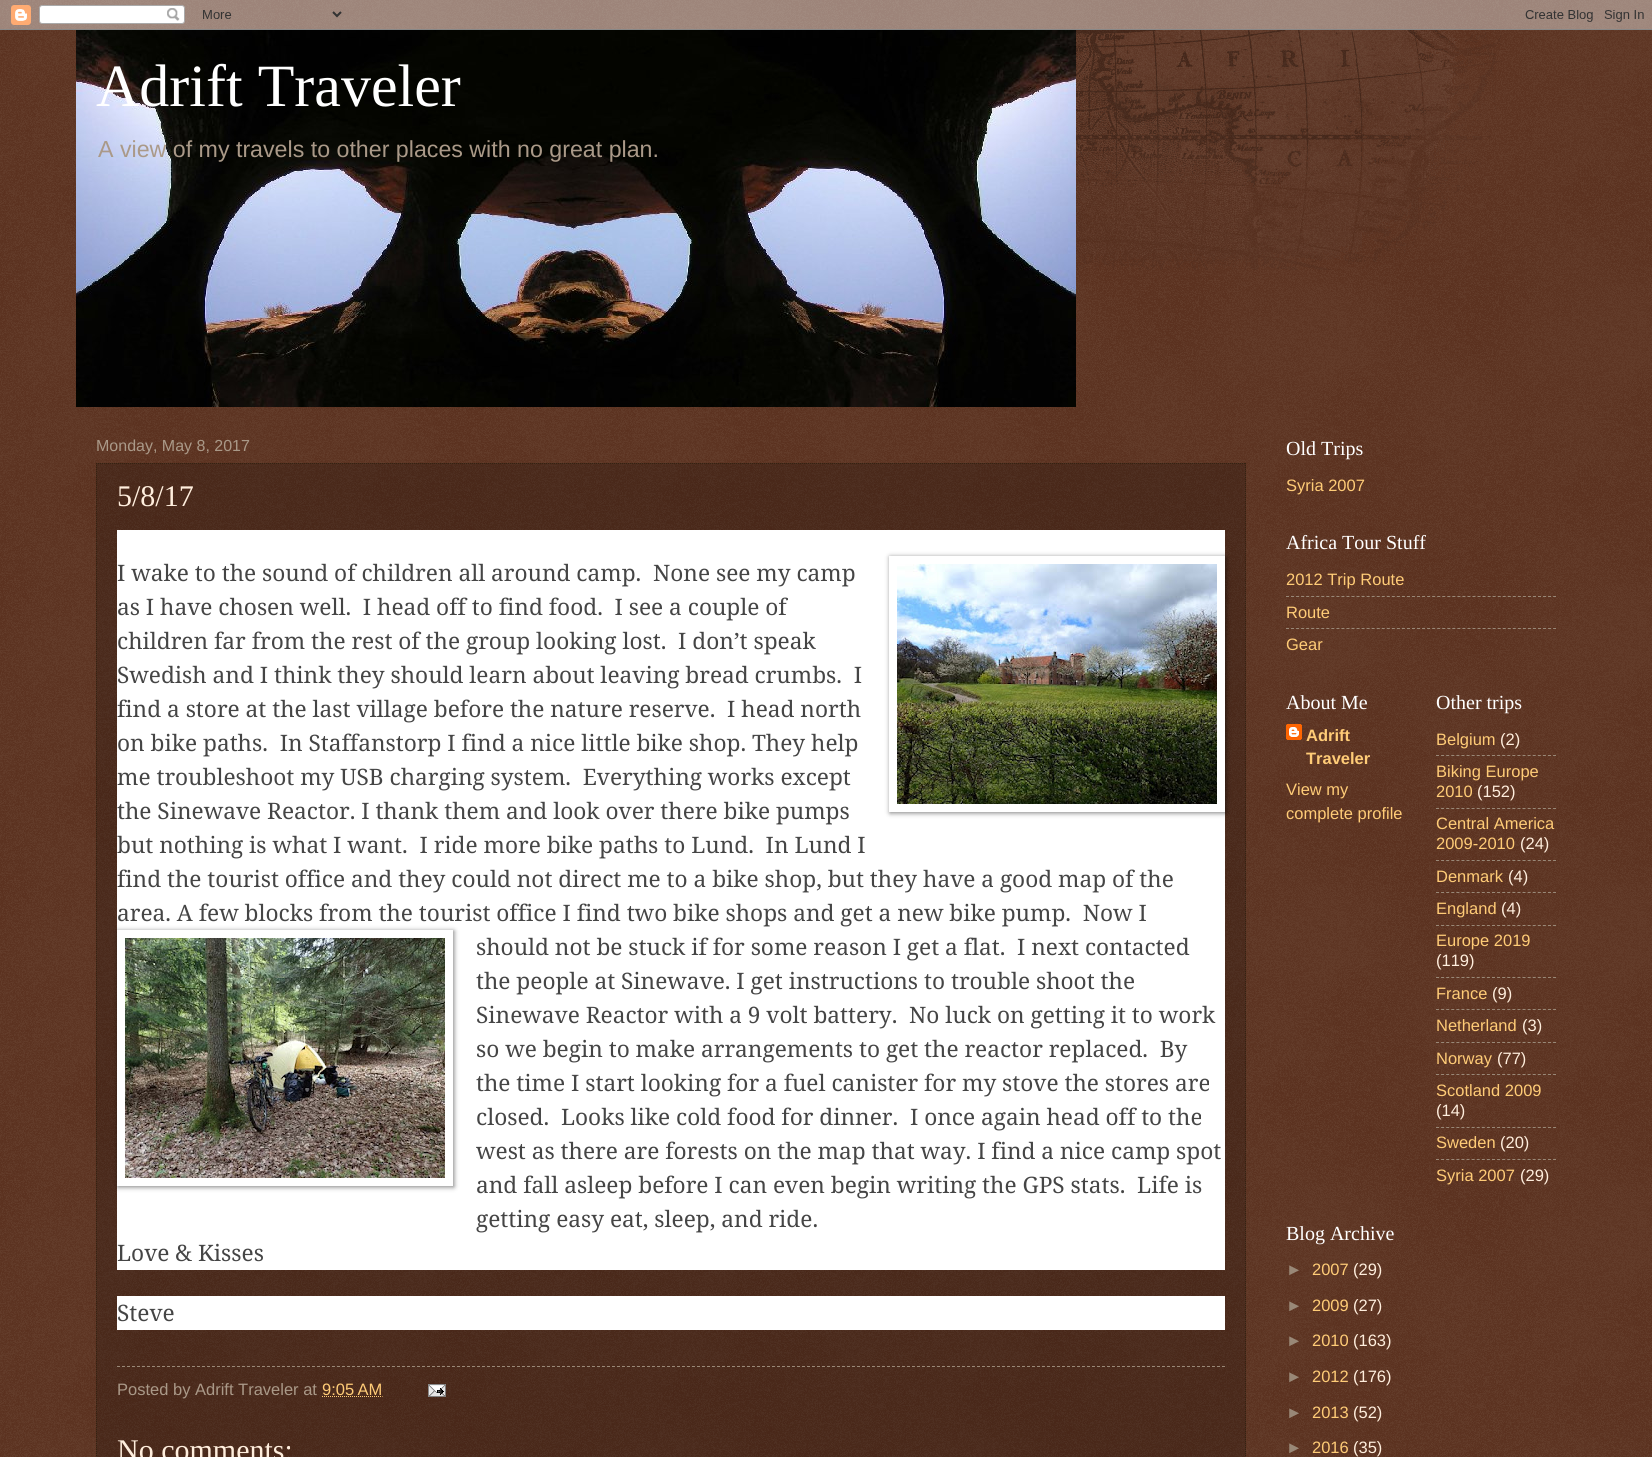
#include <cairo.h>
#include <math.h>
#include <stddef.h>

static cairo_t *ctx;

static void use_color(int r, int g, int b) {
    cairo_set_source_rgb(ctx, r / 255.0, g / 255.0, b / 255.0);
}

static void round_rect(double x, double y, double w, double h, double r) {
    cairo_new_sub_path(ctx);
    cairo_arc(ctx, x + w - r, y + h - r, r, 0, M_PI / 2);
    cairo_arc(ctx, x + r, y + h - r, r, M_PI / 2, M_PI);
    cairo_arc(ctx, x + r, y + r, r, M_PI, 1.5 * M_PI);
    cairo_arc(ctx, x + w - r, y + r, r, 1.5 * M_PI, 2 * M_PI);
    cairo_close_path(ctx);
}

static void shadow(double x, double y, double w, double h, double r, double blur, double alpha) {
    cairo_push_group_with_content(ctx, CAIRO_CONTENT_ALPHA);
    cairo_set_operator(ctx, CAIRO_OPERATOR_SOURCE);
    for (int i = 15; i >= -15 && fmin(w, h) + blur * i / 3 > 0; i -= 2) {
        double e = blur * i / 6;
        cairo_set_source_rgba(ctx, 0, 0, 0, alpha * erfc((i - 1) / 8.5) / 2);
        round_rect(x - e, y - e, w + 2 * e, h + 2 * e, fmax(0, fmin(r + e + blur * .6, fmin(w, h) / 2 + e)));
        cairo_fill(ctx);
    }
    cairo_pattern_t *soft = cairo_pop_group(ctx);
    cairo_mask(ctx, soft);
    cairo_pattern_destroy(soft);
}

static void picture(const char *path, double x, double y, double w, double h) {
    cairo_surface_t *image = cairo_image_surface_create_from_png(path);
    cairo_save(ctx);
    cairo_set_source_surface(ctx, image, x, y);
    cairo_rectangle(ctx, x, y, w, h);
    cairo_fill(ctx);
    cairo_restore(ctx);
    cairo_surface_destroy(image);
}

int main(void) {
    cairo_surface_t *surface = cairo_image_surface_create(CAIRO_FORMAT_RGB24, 1652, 1457);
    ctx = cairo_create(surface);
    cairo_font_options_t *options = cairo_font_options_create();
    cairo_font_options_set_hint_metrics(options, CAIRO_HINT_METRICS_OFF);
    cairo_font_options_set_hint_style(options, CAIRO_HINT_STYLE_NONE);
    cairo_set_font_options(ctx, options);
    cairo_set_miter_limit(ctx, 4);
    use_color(68, 21, 0);
    cairo_paint(ctx);
    picture("img1.png", 0, 0, 1652, 1457);
    picture("img2.png", 0, 0, 1652, 30);
    picture("img3.png", 1076, 30, 426, 240);
    picture("img4.png", 76, 30, 1000, 377);
    cairo_select_font_face(ctx, "Liberation Serif", CAIRO_FONT_SLANT_NORMAL, CAIRO_FONT_WEIGHT_NORMAL);
    cairo_set_font_size(ctx, 60);
    use_color(255, 255, 255);
    cairo_move_to(ctx, 96, 106);
    cairo_show_text(ctx, "Adrift Traveler");
    cairo_select_font_face(ctx, "Liberation Sans", CAIRO_FONT_SLANT_NORMAL, CAIRO_FONT_WEIGHT_NORMAL);
    cairo_set_font_size(ctx, 23.2);
    use_color(170, 153, 136);
    cairo_move_to(ctx, 98, 157);
    cairo_show_text(ctx, "A view of my travels to other places with no great plan.");
    cairo_set_font_size(ctx, 16);
    cairo_move_to(ctx, 96, 451);
    cairo_show_text(ctx, "Monday, May 8, 2017");
    cairo_set_source_rgba(ctx, 0, 0, 0, 0.2);
    cairo_rectangle(ctx, 96, 463, 1150, 994);
    cairo_fill(ctx);
    cairo_new_path(ctx);
    cairo_move_to(ctx, 96, 463.5);
    cairo_line_to(ctx, 1246, 463.5);
    use_color(51, 34, 17);
    cairo_set_line_width(ctx, 1);
    cairo_set_dash(ctx, (double[]){1, 1}, 2, 0);
    cairo_stroke(ctx);
    cairo_new_path(ctx);
    cairo_move_to(ctx, 1245.5, 463);
    cairo_line_to(ctx, 1245.5, 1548);
    cairo_stroke(ctx);
    cairo_new_path(ctx);
    cairo_move_to(ctx, 96.5, 463);
    cairo_line_to(ctx, 96.5, 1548);
    cairo_stroke(ctx);
    cairo_select_font_face(ctx, "Liberation Serif", CAIRO_FONT_SLANT_NORMAL, CAIRO_FONT_WEIGHT_NORMAL);
    cairo_set_font_size(ctx, 30);
    use_color(255, 238, 221);
    cairo_move_to(ctx, 117, 506);
    cairo_show_text(ctx, "5/8/17");
    use_color(255, 255, 255);
    cairo_rectangle(ctx, 117, 530, 1108, 740);
    cairo_fill(ctx);
    cairo_save(ctx);
    cairo_set_fill_rule(ctx, CAIRO_FILL_RULE_EVEN_ODD);
    cairo_new_path(ctx);
    cairo_move_to(ctx, 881, 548);
    cairo_line_to(ctx, 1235, 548);
    cairo_line_to(ctx, 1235, 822);
    cairo_line_to(ctx, 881, 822);
    cairo_close_path(ctx);
    cairo_move_to(ctx, 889, 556);
    cairo_line_to(ctx, 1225, 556);
    cairo_line_to(ctx, 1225, 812);
    cairo_line_to(ctx, 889, 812);
    cairo_close_path(ctx);
    cairo_clip(ctx);
    use_color(0, 0, 0);
    shadow(890, 557, 336, 256, 0, 2.5, 0.5);
    cairo_restore(ctx);
    picture("img5.png", 897, 564, 320, 240);
    cairo_select_font_face(ctx, "Noto Serif", CAIRO_FONT_SLANT_NORMAL, CAIRO_FONT_WEIGHT_NORMAL);
    cairo_set_font_size(ctx, 22.65);
    use_color(69, 69, 69);
    cairo_move_to(ctx, 117, 581);
    cairo_show_text(ctx, "I wake to the sound of children all around camp.  None see my camp");
    cairo_move_to(ctx, 117, 615);
    cairo_show_text(ctx, "as I have chosen well.  I head off to find food.  I see a couple of");
    cairo_move_to(ctx, 117, 649);
    cairo_show_text(ctx, "children far from the rest of the group looking lost.  I don’t speak");
    cairo_move_to(ctx, 117, 683);
    cairo_show_text(ctx, "Swedish and I think they should learn about leaving bread crumbs.  I");
    cairo_move_to(ctx, 117, 717);
    cairo_show_text(ctx, "find a store at the last village before the nature reserve.  I head north");
    cairo_move_to(ctx, 117, 751);
    cairo_show_text(ctx, "on bike paths.  In Staffanstorp I find a nice little bike shop. They help");
    cairo_move_to(ctx, 117, 785);
    cairo_show_text(ctx, "me troubleshoot my USB charging system.  Everything works except");
    cairo_move_to(ctx, 117, 819);
    cairo_show_text(ctx, "the Sinewave Reactor. I thank them and look over there bike pumps");
    cairo_move_to(ctx, 117, 853);
    cairo_show_text(ctx, "but nothing is what I want.  I ride more bike paths to Lund.  In Lund I");
    cairo_move_to(ctx, 117, 887);
    cairo_show_text(ctx, "find the tourist office and they could not direct me to a bike shop, but they have a good map of the");
    cairo_move_to(ctx, 117, 921);
    cairo_show_text(ctx, "area. A few blocks from the tourist office I find two bike shops and get a new bike pump.  Now I");
    cairo_save(ctx);
    cairo_set_fill_rule(ctx, CAIRO_FILL_RULE_EVEN_ODD);
    cairo_new_path(ctx);
    cairo_move_to(ctx, 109, 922);
    cairo_line_to(ctx, 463, 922);
    cairo_line_to(ctx, 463, 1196);
    cairo_line_to(ctx, 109, 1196);
    cairo_close_path(ctx);
    cairo_move_to(ctx, 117, 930);
    cairo_line_to(ctx, 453, 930);
    cairo_line_to(ctx, 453, 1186);
    cairo_line_to(ctx, 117, 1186);
    cairo_close_path(ctx);
    cairo_clip(ctx);
    use_color(0, 0, 0);
    shadow(118, 931, 336, 256, 0, 2.5, 0.5);
    cairo_restore(ctx);
    picture("img6.png", 125, 938, 320, 240);
    cairo_move_to(ctx, 476, 955);
    cairo_show_text(ctx, "should not be stuck if for some reason I get a flat.");
    cairo_move_to(ctx, 1017, 955);
    cairo_show_text(ctx, "I next contacted");
    cairo_move_to(ctx, 476, 989);
    cairo_show_text(ctx, "the people at Sinewave. I get instructions to trouble shoot the");
    cairo_move_to(ctx, 476, 1023);
    cairo_show_text(ctx, "Sinewave Reactor with a 9 volt battery.  No luck on getting it to work");
    cairo_move_to(ctx, 476, 1057);
    cairo_show_text(ctx, "so we begin to make arrangements to get the reactor replaced.  By");
    cairo_move_to(ctx, 476, 1091);
    cairo_show_text(ctx, "the time I start looking for a fuel canister for my stove the stores are");
    cairo_move_to(ctx, 476, 1125);
    cairo_show_text(ctx, "closed.  Looks like cold food for dinner.  I once again head off to the");
    cairo_move_to(ctx, 476, 1159);
    cairo_show_text(ctx, "west as there are forests on the map that way. I find a nice camp spot");
    cairo_move_to(ctx, 476, 1193);
    cairo_show_text(ctx, "and fall asleep before I can even begin writing the GPS stats.  Life is");
    cairo_move_to(ctx, 476, 1227);
    cairo_show_text(ctx, "getting easy eat, sleep, and ride.");
    cairo_move_to(ctx, 117, 1261);
    cairo_show_text(ctx, "Love & Kisses");
    use_color(255, 255, 255);
    cairo_rectangle(ctx, 117, 1296, 1108, 34);
    cairo_fill(ctx);
    use_color(69, 69, 69);
    cairo_move_to(ctx, 117, 1321);
    cairo_show_text(ctx, "Steve");
    cairo_new_path(ctx);
    cairo_move_to(ctx, 117, 1366.5);
    cairo_line_to(ctx, 1225, 1366.5);
    use_color(153, 136, 119);
    cairo_set_dash(ctx, (double[]){3, 2}, 2, 0);
    cairo_stroke(ctx);
    cairo_select_font_face(ctx, "Liberation Sans", CAIRO_FONT_SLANT_NORMAL, CAIRO_FONT_WEIGHT_NORMAL);
    cairo_set_font_size(ctx, 16.5);
    use_color(170, 153, 136);
    cairo_move_to(ctx, 117, 1395);
    cairo_show_text(ctx, "Posted by Adrift Traveler at");
    use_color(255, 204, 119);
    cairo_move_to(ctx, 322, 1395);
    cairo_show_text(ctx, "9:05 AM");
    cairo_new_path(ctx);
    cairo_move_to(ctx, 322, 1396.5);
    cairo_line_to(ctx, 382.5, 1396.5);
    cairo_set_dash(ctx, (double[]){1, 1}, 2, 0);
    cairo_stroke(ctx);
    picture("img7.png", 428, 1384, 18, 13);
    cairo_select_font_face(ctx, "Liberation Serif", CAIRO_FONT_SLANT_NORMAL, CAIRO_FONT_WEIGHT_NORMAL);
    cairo_set_font_size(ctx, 30);
    use_color(255, 238, 221);
    cairo_move_to(ctx, 117, 1460);
    cairo_show_text(ctx, "No comments:");
    cairo_set_font_size(ctx, 20);
    use_color(255, 255, 255);
    cairo_move_to(ctx, 1286, 455);
    cairo_show_text(ctx, "Old Trips");
    cairo_select_font_face(ctx, "Liberation Sans", CAIRO_FONT_SLANT_NORMAL, CAIRO_FONT_WEIGHT_NORMAL);
    cairo_set_font_size(ctx, 16.5);
    use_color(255, 204, 119);
    cairo_move_to(ctx, 1286, 491);
    cairo_show_text(ctx, "Syria 2007");
    cairo_select_font_face(ctx, "Liberation Serif", CAIRO_FONT_SLANT_NORMAL, CAIRO_FONT_WEIGHT_NORMAL);
    cairo_set_font_size(ctx, 20);
    use_color(255, 255, 255);
    cairo_move_to(ctx, 1286, 549);
    cairo_show_text(ctx, "Africa Tour Stuff");
    cairo_select_font_face(ctx, "Liberation Sans", CAIRO_FONT_SLANT_NORMAL, CAIRO_FONT_WEIGHT_NORMAL);
    cairo_set_font_size(ctx, 16.5);
    use_color(255, 204, 119);
    cairo_move_to(ctx, 1286, 585);
    cairo_show_text(ctx, "2012 Trip Route");
    cairo_new_path(ctx);
    cairo_move_to(ctx, 1286, 596.5);
    cairo_line_to(ctx, 1556, 596.5);
    use_color(153, 136, 119);
    cairo_set_dash(ctx, (double[]){3, 2.04}, 2, 0);
    cairo_stroke(ctx);
    use_color(255, 204, 119);
    cairo_move_to(ctx, 1286, 618);
    cairo_show_text(ctx, "Route");
    cairo_new_path(ctx);
    cairo_move_to(ctx, 1286, 628.5);
    cairo_line_to(ctx, 1556, 628.5);
    use_color(153, 136, 119);
    cairo_stroke(ctx);
    use_color(255, 204, 119);
    cairo_move_to(ctx, 1286, 650);
    cairo_show_text(ctx, "Gear");
    cairo_select_font_face(ctx, "Liberation Serif", CAIRO_FONT_SLANT_NORMAL, CAIRO_FONT_WEIGHT_NORMAL);
    cairo_set_font_size(ctx, 20);
    use_color(255, 255, 255);
    cairo_move_to(ctx, 1286, 709);
    cairo_show_text(ctx, "About Me");
    picture("img8.png", 1286, 724, 16, 16);
    cairo_select_font_face(ctx, "Liberation Sans", CAIRO_FONT_SLANT_NORMAL, CAIRO_FONT_WEIGHT_BOLD);
    cairo_set_font_size(ctx, 16.5);
    use_color(255, 204, 119);
    cairo_move_to(ctx, 1306, 741);
    cairo_show_text(ctx, "Adrift");
    cairo_move_to(ctx, 1306, 764);
    cairo_show_text(ctx, "Traveler");
    cairo_select_font_face(ctx, "Liberation Sans", CAIRO_FONT_SLANT_NORMAL, CAIRO_FONT_WEIGHT_NORMAL);
    cairo_move_to(ctx, 1286, 795);
    cairo_show_text(ctx, "View my");
    cairo_move_to(ctx, 1286, 819);
    cairo_show_text(ctx, "complete profile");
    cairo_select_font_face(ctx, "Liberation Serif", CAIRO_FONT_SLANT_NORMAL, CAIRO_FONT_WEIGHT_NORMAL);
    cairo_set_font_size(ctx, 20);
    use_color(255, 255, 255);
    cairo_move_to(ctx, 1436, 709);
    cairo_show_text(ctx, "Other trips");
    cairo_select_font_face(ctx, "Liberation Sans", CAIRO_FONT_SLANT_NORMAL, CAIRO_FONT_WEIGHT_NORMAL);
    cairo_set_font_size(ctx, 16.5);
    use_color(255, 204, 119);
    cairo_move_to(ctx, 1436, 745);
    cairo_show_text(ctx, "Belgium");
    use_color(255, 238, 221);
    cairo_move_to(ctx, 1500, 745);
    cairo_show_text(ctx, "(2)");
    cairo_new_path(ctx);
    cairo_move_to(ctx, 1436, 755.5);
    cairo_line_to(ctx, 1556, 755.5);
    use_color(153, 136, 119);
    cairo_set_dash(ctx, (double[]){3, 2.09}, 2, 0);
    cairo_stroke(ctx);
    use_color(255, 204, 119);
    cairo_move_to(ctx, 1436, 777);
    cairo_show_text(ctx, "Biking Europe");
    cairo_move_to(ctx, 1436, 797);
    cairo_show_text(ctx, "2010");
    use_color(255, 238, 221);
    cairo_move_to(ctx, 1477, 797);
    cairo_show_text(ctx, "(152)");
    cairo_new_path(ctx);
    cairo_move_to(ctx, 1436, 808.5);
    cairo_line_to(ctx, 1556, 808.5);
    use_color(153, 136, 119);
    cairo_stroke(ctx);
    use_color(255, 204, 119);
    cairo_move_to(ctx, 1436, 829);
    cairo_show_text(ctx, "Central America");
    cairo_move_to(ctx, 1436, 849);
    cairo_show_text(ctx, "2009-2010");
    use_color(255, 238, 221);
    cairo_move_to(ctx, 1520, 849);
    cairo_show_text(ctx, "(24)");
    cairo_new_path(ctx);
    cairo_move_to(ctx, 1436, 860.5);
    cairo_line_to(ctx, 1556, 860.5);
    use_color(153, 136, 119);
    cairo_stroke(ctx);
    use_color(255, 204, 119);
    cairo_move_to(ctx, 1436, 882);
    cairo_show_text(ctx, "Denmark");
    use_color(255, 238, 221);
    cairo_move_to(ctx, 1508, 882);
    cairo_show_text(ctx, "(4)");
    cairo_new_path(ctx);
    cairo_move_to(ctx, 1436, 892.5);
    cairo_line_to(ctx, 1556, 892.5);
    use_color(153, 136, 119);
    cairo_stroke(ctx);
    use_color(255, 204, 119);
    cairo_move_to(ctx, 1436, 914);
    cairo_show_text(ctx, "England");
    use_color(255, 238, 221);
    cairo_move_to(ctx, 1501, 914);
    cairo_show_text(ctx, "(4)");
    cairo_new_path(ctx);
    cairo_move_to(ctx, 1436, 925.5);
    cairo_line_to(ctx, 1556, 925.5);
    use_color(153, 136, 119);
    cairo_stroke(ctx);
    use_color(255, 204, 119);
    cairo_move_to(ctx, 1436, 946);
    cairo_show_text(ctx, "Europe 2019");
    use_color(255, 238, 221);
    cairo_move_to(ctx, 1436, 966);
    cairo_show_text(ctx, "(119)");
    cairo_new_path(ctx);
    cairo_move_to(ctx, 1436, 977.5);
    cairo_line_to(ctx, 1556, 977.5);
    use_color(153, 136, 119);
    cairo_stroke(ctx);
    use_color(255, 204, 119);
    cairo_move_to(ctx, 1436, 999);
    cairo_show_text(ctx, "France");
    use_color(255, 238, 221);
    cairo_move_to(ctx, 1492, 999);
    cairo_show_text(ctx, "(9)");
    cairo_new_path(ctx);
    cairo_move_to(ctx, 1436, 1009.5);
    cairo_line_to(ctx, 1556, 1009.5);
    use_color(153, 136, 119);
    cairo_stroke(ctx);
    use_color(255, 204, 119);
    cairo_move_to(ctx, 1436, 1031);
    cairo_show_text(ctx, "Netherland");
    use_color(255, 238, 221);
    cairo_move_to(ctx, 1522, 1031);
    cairo_show_text(ctx, "(3)");
    cairo_new_path(ctx);
    cairo_move_to(ctx, 1436, 1042.5);
    cairo_line_to(ctx, 1556, 1042.5);
    use_color(153, 136, 119);
    cairo_stroke(ctx);
    use_color(255, 204, 119);
    cairo_move_to(ctx, 1436, 1064);
    cairo_show_text(ctx, "Norway");
    use_color(255, 238, 221);
    cairo_move_to(ctx, 1497, 1064);
    cairo_show_text(ctx, "(77)");
    cairo_new_path(ctx);
    cairo_move_to(ctx, 1436, 1074.5);
    cairo_line_to(ctx, 1556, 1074.5);
    use_color(153, 136, 119);
    cairo_stroke(ctx);
    use_color(255, 204, 119);
    cairo_move_to(ctx, 1436, 1096);
    cairo_show_text(ctx, "Scotland 2009");
    use_color(255, 238, 221);
    cairo_move_to(ctx, 1436, 1116);
    cairo_show_text(ctx, "(14)");
    cairo_new_path(ctx);
    cairo_move_to(ctx, 1436, 1127.5);
    cairo_line_to(ctx, 1556, 1127.5);
    use_color(153, 136, 119);
    cairo_stroke(ctx);
    use_color(255, 204, 119);
    cairo_move_to(ctx, 1436, 1148);
    cairo_show_text(ctx, "Sweden");
    use_color(255, 238, 221);
    cairo_move_to(ctx, 1500, 1148);
    cairo_show_text(ctx, "(20)");
    cairo_new_path(ctx);
    cairo_move_to(ctx, 1436, 1159.5);
    cairo_line_to(ctx, 1556, 1159.5);
    use_color(153, 136, 119);
    cairo_stroke(ctx);
    use_color(255, 204, 119);
    cairo_move_to(ctx, 1436, 1181);
    cairo_show_text(ctx, "Syria 2007");
    use_color(255, 238, 221);
    cairo_move_to(ctx, 1520, 1181);
    cairo_show_text(ctx, "(29)");
    cairo_select_font_face(ctx, "Liberation Serif", CAIRO_FONT_SLANT_NORMAL, CAIRO_FONT_WEIGHT_NORMAL);
    cairo_set_font_size(ctx, 20);
    use_color(255, 255, 255);
    cairo_move_to(ctx, 1286, 1240);
    cairo_show_text(ctx, "Blog Archive");
    cairo_select_font_face(ctx, "Liberation Sans", CAIRO_FONT_SLANT_NORMAL, CAIRO_FONT_WEIGHT_NORMAL);
    cairo_set_font_size(ctx, 16.5);
    use_color(153, 136, 119);
    cairo_move_to(ctx, 1286, 1275);
    cairo_show_text(ctx, "►");
    use_color(255, 204, 119);
    cairo_move_to(ctx, 1312, 1275);
    cairo_show_text(ctx, "2007");
    use_color(255, 238, 221);
    cairo_move_to(ctx, 1353, 1275);
    cairo_show_text(ctx, "(29)");
    use_color(153, 136, 119);
    cairo_move_to(ctx, 1286, 1311);
    cairo_show_text(ctx, "►");
    use_color(255, 204, 119);
    cairo_move_to(ctx, 1312, 1311);
    cairo_show_text(ctx, "2009");
    use_color(255, 238, 221);
    cairo_move_to(ctx, 1353, 1311);
    cairo_show_text(ctx, "(27)");
    use_color(153, 136, 119);
    cairo_move_to(ctx, 1286, 1346);
    cairo_show_text(ctx, "►");
    use_color(255, 204, 119);
    cairo_move_to(ctx, 1312, 1346);
    cairo_show_text(ctx, "2010");
    use_color(255, 238, 221);
    cairo_move_to(ctx, 1353, 1346);
    cairo_show_text(ctx, "(163)");
    use_color(153, 136, 119);
    cairo_move_to(ctx, 1286, 1382);
    cairo_show_text(ctx, "►");
    use_color(255, 204, 119);
    cairo_move_to(ctx, 1312, 1382);
    cairo_show_text(ctx, "2012");
    use_color(255, 238, 221);
    cairo_move_to(ctx, 1353, 1382);
    cairo_show_text(ctx, "(176)");
    use_color(153, 136, 119);
    cairo_move_to(ctx, 1286, 1418);
    cairo_show_text(ctx, "►");
    use_color(255, 204, 119);
    cairo_move_to(ctx, 1312, 1418);
    cairo_show_text(ctx, "2013");
    use_color(255, 238, 221);
    cairo_move_to(ctx, 1353, 1418);
    cairo_show_text(ctx, "(52)");
    use_color(153, 136, 119);
    cairo_move_to(ctx, 1286, 1453);
    cairo_show_text(ctx, "►");
    use_color(255, 204, 119);
    cairo_move_to(ctx, 1312, 1453);
    cairo_show_text(ctx, "2016");
    use_color(255, 238, 221);
    cairo_move_to(ctx, 1353, 1453);
    cairo_show_text(ctx, "(35)");
    cairo_surface_write_to_png(surface, "result.png");
    cairo_font_options_destroy(options);
    cairo_destroy(ctx);
    cairo_surface_destroy(surface);
    return 0;
}
